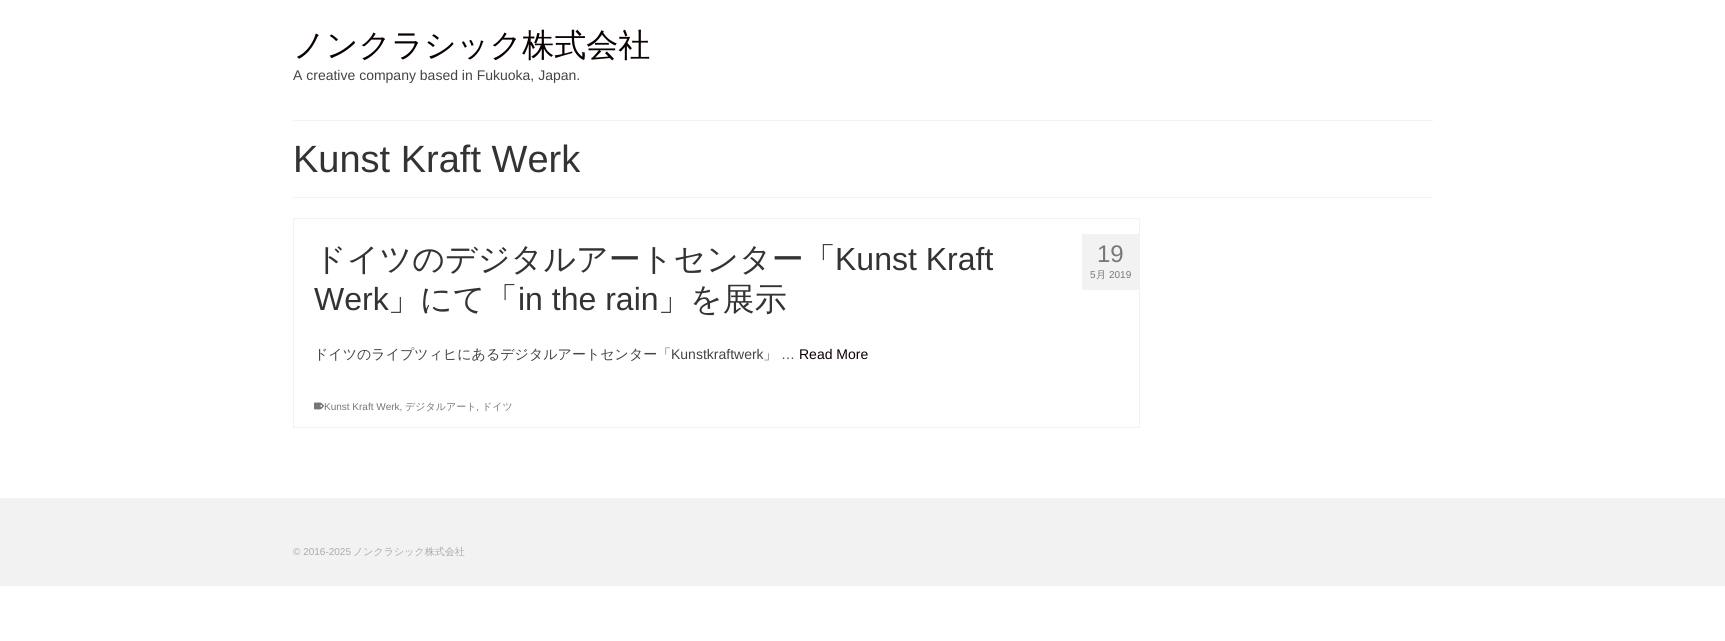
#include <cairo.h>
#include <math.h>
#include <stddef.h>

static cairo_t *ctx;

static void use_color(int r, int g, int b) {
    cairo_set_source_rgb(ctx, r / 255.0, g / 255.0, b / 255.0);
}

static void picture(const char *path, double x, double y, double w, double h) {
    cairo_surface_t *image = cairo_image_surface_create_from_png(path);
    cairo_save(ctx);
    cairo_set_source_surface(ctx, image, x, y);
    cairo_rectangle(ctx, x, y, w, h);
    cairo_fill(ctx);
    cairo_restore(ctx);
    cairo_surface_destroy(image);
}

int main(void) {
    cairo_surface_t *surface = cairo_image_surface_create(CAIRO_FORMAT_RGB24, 1725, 641);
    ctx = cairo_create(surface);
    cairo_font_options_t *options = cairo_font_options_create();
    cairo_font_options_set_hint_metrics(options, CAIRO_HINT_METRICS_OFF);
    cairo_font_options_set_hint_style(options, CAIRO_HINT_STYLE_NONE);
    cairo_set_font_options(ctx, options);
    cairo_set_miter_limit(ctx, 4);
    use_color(255, 255, 255);
    cairo_paint(ctx);
    cairo_select_font_face(ctx, "WenQuanYi Zen Hei Medium", CAIRO_FONT_SLANT_NORMAL, CAIRO_FONT_WEIGHT_NORMAL);
    cairo_set_font_size(ctx, 32);
    use_color(10, 0, 0);
    cairo_move_to(ctx, 293, 56);
    cairo_show_text(ctx, "ノンクラシック株式会社");
    cairo_select_font_face(ctx, "Liberation Sans", CAIRO_FONT_SLANT_NORMAL, CAIRO_FONT_WEIGHT_NORMAL);
    cairo_set_font_size(ctx, 14);
    use_color(68, 68, 68);
    cairo_move_to(ctx, 293, 80);
    cairo_show_text(ctx, "A creative company based in Fukuoka, Japan.");
    use_color(242, 242, 242);
    cairo_rectangle(ctx, 293, 120, 1140, 1);
    cairo_fill(ctx);
    cairo_rectangle(ctx, 293, 197, 1140, 1);
    cairo_fill(ctx);
    cairo_set_font_size(ctx, 38);
    use_color(51, 51, 51);
    cairo_move_to(ctx, 293, 172);
    cairo_show_text(ctx, "Kunst Kraft Werk");
    cairo_rectangle(ctx, 293.5, 218.5, 846, 209);
    use_color(242, 242, 242);
    cairo_set_line_width(ctx, 1);
    cairo_stroke(ctx);
    cairo_select_font_face(ctx, "WenQuanYi Zen Hei Medium", CAIRO_FONT_SLANT_NORMAL, CAIRO_FONT_WEIGHT_NORMAL);
    cairo_set_font_size(ctx, 32);
    use_color(51, 51, 51);
    cairo_move_to(ctx, 314, 270);
    cairo_show_text(ctx, "ドイツのデジタルアートセンター「");
    cairo_select_font_face(ctx, "Liberation Sans", CAIRO_FONT_SLANT_NORMAL, CAIRO_FONT_WEIGHT_NORMAL);
    cairo_move_to(ctx, 835, 270);
    cairo_show_text(ctx, "Kunst Kraft");
    cairo_move_to(ctx, 314, 310);
    cairo_show_text(ctx, "Werk");
    cairo_select_font_face(ctx, "WenQuanYi Zen Hei Medium", CAIRO_FONT_SLANT_NORMAL, CAIRO_FONT_WEIGHT_NORMAL);
    cairo_move_to(ctx, 388, 310);
    cairo_show_text(ctx, "」にて「");
    cairo_select_font_face(ctx, "Liberation Sans", CAIRO_FONT_SLANT_NORMAL, CAIRO_FONT_WEIGHT_NORMAL);
    cairo_move_to(ctx, 518, 310);
    cairo_show_text(ctx, "in the rain");
    cairo_select_font_face(ctx, "WenQuanYi Zen Hei Medium", CAIRO_FONT_SLANT_NORMAL, CAIRO_FONT_WEIGHT_NORMAL);
    cairo_move_to(ctx, 658, 310);
    cairo_show_text(ctx, "」を展示");
    use_color(242, 242, 242);
    cairo_rectangle(ctx, 1082, 234, 57, 56);
    cairo_fill(ctx);
    cairo_select_font_face(ctx, "Liberation Sans", CAIRO_FONT_SLANT_NORMAL, CAIRO_FONT_WEIGHT_NORMAL);
    cairo_set_font_size(ctx, 24);
    use_color(119, 119, 119);
    cairo_move_to(ctx, 1097, 262);
    cairo_show_text(ctx, "19");
    cairo_set_font_size(ctx, 10);
    cairo_move_to(ctx, 1090, 278);
    cairo_show_text(ctx, "5");
    cairo_select_font_face(ctx, "WenQuanYi Zen Hei Medium", CAIRO_FONT_SLANT_NORMAL, CAIRO_FONT_WEIGHT_NORMAL);
    cairo_move_to(ctx, 1096, 278);
    cairo_show_text(ctx, "月");
    cairo_select_font_face(ctx, "Liberation Sans", CAIRO_FONT_SLANT_NORMAL, CAIRO_FONT_WEIGHT_NORMAL);
    cairo_move_to(ctx, 1109, 278);
    cairo_show_text(ctx, "2019");
    cairo_select_font_face(ctx, "WenQuanYi Zen Hei Medium", CAIRO_FONT_SLANT_NORMAL, CAIRO_FONT_WEIGHT_NORMAL);
    cairo_set_font_size(ctx, 14);
    use_color(68, 68, 68);
    cairo_move_to(ctx, 314, 359);
    cairo_show_text(ctx, "ドイツのライプツィヒにあるデジタルアートセンター「");
    cairo_select_font_face(ctx, "Liberation Sans", CAIRO_FONT_SLANT_NORMAL, CAIRO_FONT_WEIGHT_NORMAL);
    cairo_move_to(ctx, 671, 359);
    cairo_show_text(ctx, "Kunstkraftwerk");
    cairo_select_font_face(ctx, "WenQuanYi Zen Hei Medium", CAIRO_FONT_SLANT_NORMAL, CAIRO_FONT_WEIGHT_NORMAL);
    cairo_move_to(ctx, 763, 359);
    cairo_show_text(ctx, "」");
    cairo_select_font_face(ctx, "Liberation Sans", CAIRO_FONT_SLANT_NORMAL, CAIRO_FONT_WEIGHT_NORMAL);
    cairo_move_to(ctx, 781, 359);
    cairo_show_text(ctx, "…");
    use_color(10, 0, 0);
    cairo_move_to(ctx, 799, 359);
    cairo_show_text(ctx, "Read More");
    picture("img1.png", 314, 402, 10, 8);
    cairo_set_font_size(ctx, 10);
    use_color(119, 119, 119);
    cairo_move_to(ctx, 324, 410);
    cairo_show_text(ctx, "Kunst Kraft Werk,");
    cairo_select_font_face(ctx, "WenQuanYi Zen Hei Medium", CAIRO_FONT_SLANT_NORMAL, CAIRO_FONT_WEIGHT_NORMAL);
    cairo_move_to(ctx, 405, 410);
    cairo_show_text(ctx, "デジタルアート");
    cairo_select_font_face(ctx, "Liberation Sans", CAIRO_FONT_SLANT_NORMAL, CAIRO_FONT_WEIGHT_NORMAL);
    cairo_move_to(ctx, 476, 410);
    cairo_show_text(ctx, ",");
    cairo_select_font_face(ctx, "WenQuanYi Zen Hei Medium", CAIRO_FONT_SLANT_NORMAL, CAIRO_FONT_WEIGHT_NORMAL);
    cairo_move_to(ctx, 482, 410);
    cairo_show_text(ctx, "ドイツ");
    use_color(242, 242, 242);
    cairo_rectangle(ctx, 0, 498, 1725, 88);
    cairo_fill(ctx);
    cairo_select_font_face(ctx, "Liberation Sans", CAIRO_FONT_SLANT_NORMAL, CAIRO_FONT_WEIGHT_NORMAL);
    use_color(170, 170, 170);
    cairo_move_to(ctx, 293, 555);
    cairo_show_text(ctx, "© 2016-2025");
    cairo_select_font_face(ctx, "WenQuanYi Zen Hei Medium", CAIRO_FONT_SLANT_NORMAL, CAIRO_FONT_WEIGHT_NORMAL);
    cairo_move_to(ctx, 353, 555);
    cairo_show_text(ctx, "ノンクラシック株式会社");
    cairo_surface_write_to_png(surface, "result.png");
    cairo_font_options_destroy(options);
    cairo_destroy(ctx);
    cairo_surface_destroy(surface);
    return 0;
}
